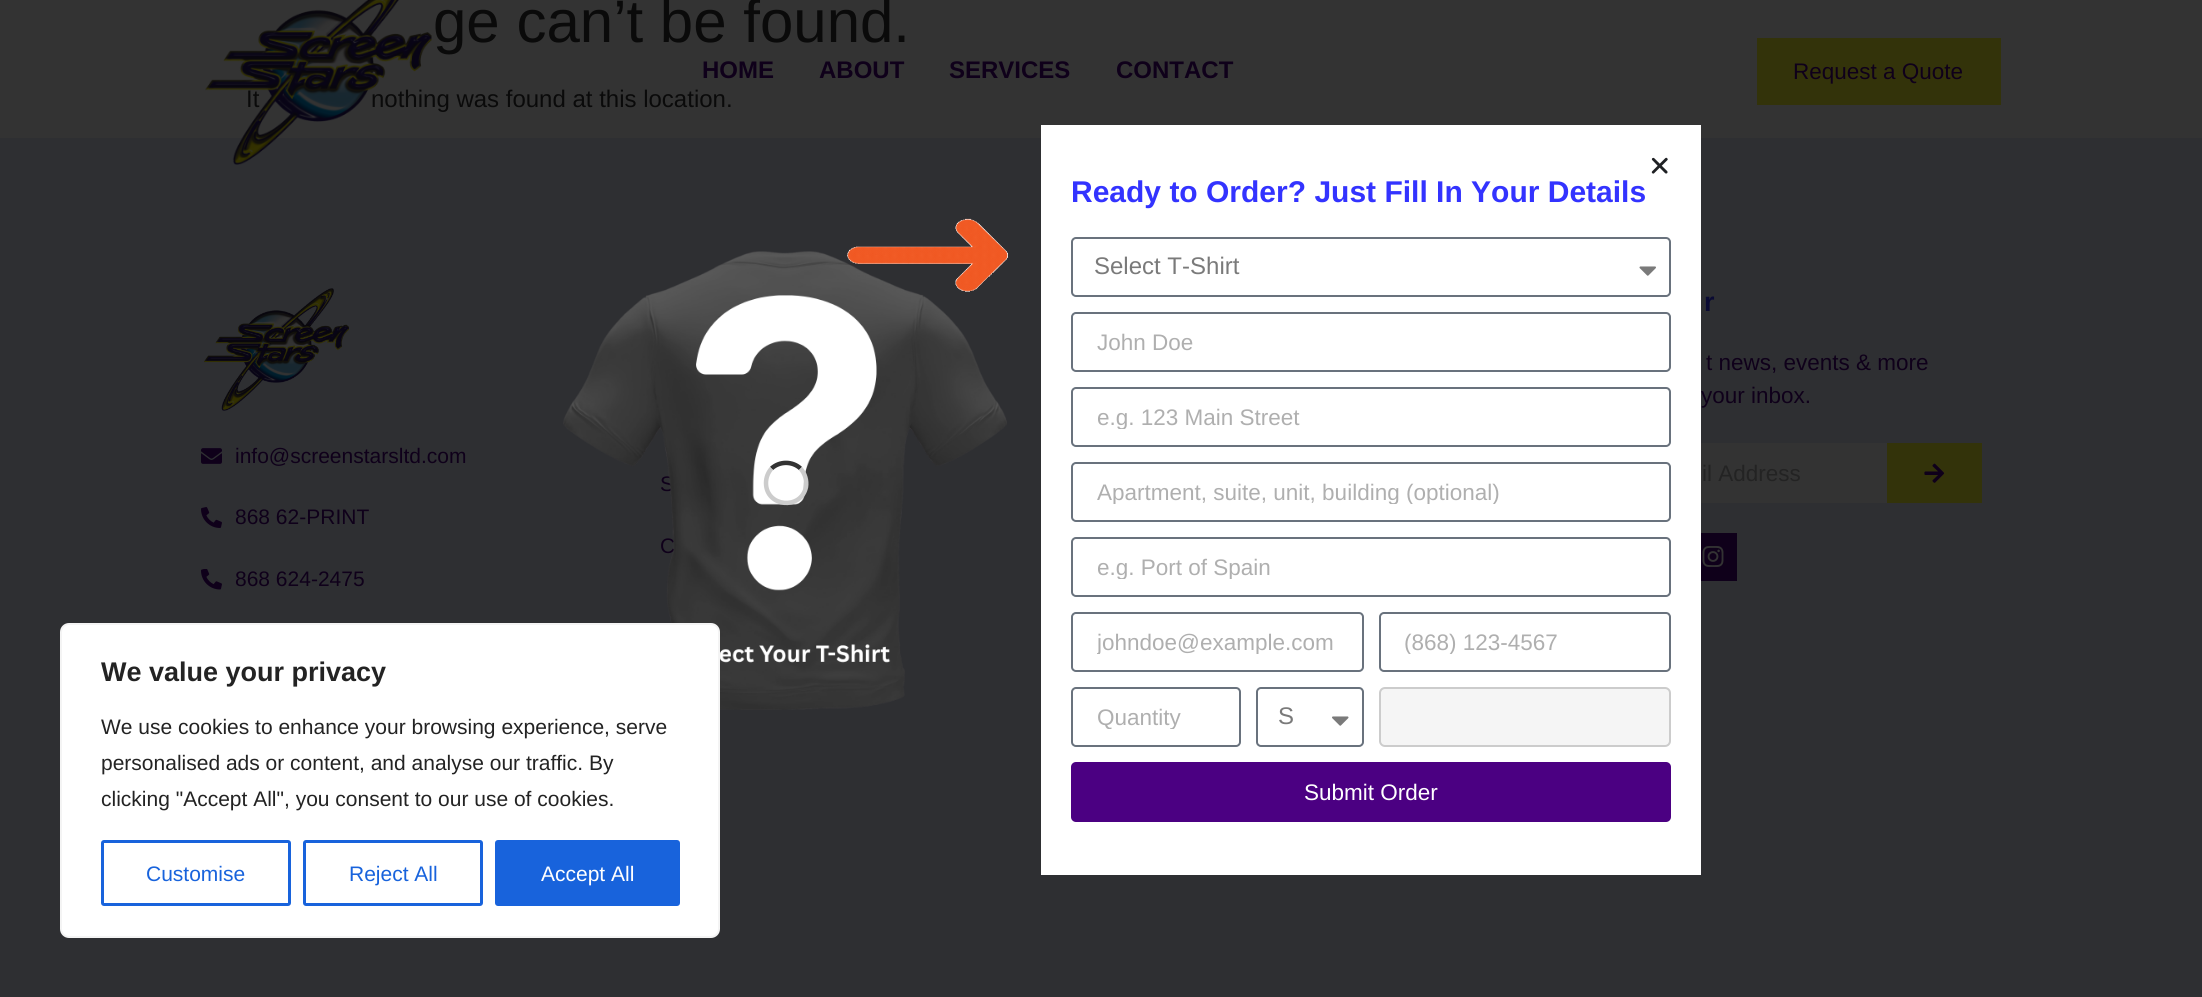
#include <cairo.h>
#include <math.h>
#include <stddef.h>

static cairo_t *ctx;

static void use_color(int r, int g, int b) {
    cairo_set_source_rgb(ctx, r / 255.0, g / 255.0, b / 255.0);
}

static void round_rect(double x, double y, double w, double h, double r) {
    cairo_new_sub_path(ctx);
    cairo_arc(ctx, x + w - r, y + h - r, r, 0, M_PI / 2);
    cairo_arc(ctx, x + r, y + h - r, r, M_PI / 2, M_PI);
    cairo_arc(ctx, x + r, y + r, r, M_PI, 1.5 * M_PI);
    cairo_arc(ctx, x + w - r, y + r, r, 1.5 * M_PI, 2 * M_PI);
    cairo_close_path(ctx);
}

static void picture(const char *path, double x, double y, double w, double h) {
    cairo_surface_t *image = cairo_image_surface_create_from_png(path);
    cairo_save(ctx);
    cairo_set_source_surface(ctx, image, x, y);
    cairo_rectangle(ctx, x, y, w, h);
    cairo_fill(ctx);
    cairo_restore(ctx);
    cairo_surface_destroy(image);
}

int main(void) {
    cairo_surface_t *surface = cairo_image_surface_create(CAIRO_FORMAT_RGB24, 2202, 997);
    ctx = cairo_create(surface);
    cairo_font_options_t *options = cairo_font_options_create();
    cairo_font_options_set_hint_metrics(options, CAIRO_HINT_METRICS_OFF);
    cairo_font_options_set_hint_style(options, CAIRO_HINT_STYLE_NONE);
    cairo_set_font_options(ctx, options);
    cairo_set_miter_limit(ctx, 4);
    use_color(51, 51, 51);
    cairo_paint(ctx);
    cairo_select_font_face(ctx, "Liberation Sans", CAIRO_FONT_SLANT_NORMAL, CAIRO_FONT_WEIGHT_NORMAL);
    cairo_set_font_size(ctx, 60);
    use_color(10, 10, 10);
    cairo_move_to(ctx, 433, 42);
    cairo_show_text(ctx, "ge can’t be found.");
    cairo_set_font_size(ctx, 24);
    cairo_move_to(ctx, 246, 107);
    cairo_show_text(ctx, "It");
    cairo_move_to(ctx, 371, 107);
    cairo_show_text(ctx, "nothing was found at this location.");
    use_color(46, 47, 50);
    cairo_rectangle(ctx, 0, 138, 2202, 859);
    cairo_fill(ctx);
    picture("img1.png", 205, 0, 227, 165);
    cairo_select_font_face(ctx, "Liberation Sans", CAIRO_FONT_SLANT_NORMAL, CAIRO_FONT_WEIGHT_BOLD);
    use_color(15, 0, 26);
    cairo_move_to(ctx, 702, 78);
    cairo_show_text(ctx, "HOME");
    cairo_move_to(ctx, 819, 78);
    cairo_show_text(ctx, "ABOUT");
    cairo_move_to(ctx, 949, 78);
    cairo_show_text(ctx, "SERVICES");
    cairo_move_to(ctx, 1116, 78);
    cairo_show_text(ctx, "CONTACT");
    use_color(51, 51, 10);
    cairo_rectangle(ctx, 1757, 38, 244, 67);
    cairo_fill(ctx);
    cairo_select_font_face(ctx, "Liberation Sans", CAIRO_FONT_SLANT_NORMAL, CAIRO_FONT_WEIGHT_NORMAL);
    cairo_set_font_size(ctx, 22.5);
    use_color(15, 0, 26);
    cairo_move_to(ctx, 1793, 79);
    cairo_show_text(ctx, "Request a Quote");
    cairo_move_to(ctx, 1701, 403);
    cairo_show_text(ctx, "your inbox.");
    use_color(255, 255, 255);
    cairo_rectangle(ctx, 1041, 125, 660, 750);
    cairo_fill(ctx);
    picture("img2.png", 1651, 157, 17, 17);
    cairo_set_font_size(ctx, 21);
    use_color(15, 0, 26);
    cairo_move_to(ctx, 660, 491);
    cairo_show_text(ctx, "S");
    cairo_move_to(ctx, 660, 553);
    cairo_show_text(ctx, "C");
    picture("img6.png", 563, 251, 444, 459);
    picture("img3.png", 847, 218, 161, 74);
    cairo_select_font_face(ctx, "Liberation Sans", CAIRO_FONT_SLANT_NORMAL, CAIRO_FONT_WEIGHT_BOLD);
    cairo_set_font_size(ctx, 30);
    use_color(51, 51, 255);
    cairo_move_to(ctx, 1071, 202);
    cairo_show_text(ctx, "Ready to Order? Just Fill In Your Details");
    round_rect(1072, 238, 598, 58, 4);
    use_color(105, 114, 125);
    cairo_stroke(ctx);
    cairo_select_font_face(ctx, "Liberation Sans", CAIRO_FONT_SLANT_NORMAL, CAIRO_FONT_WEIGHT_NORMAL);
    cairo_set_font_size(ctx, 24);
    use_color(122, 122, 122);
    cairo_move_to(ctx, 1094, 274);
    cairo_show_text(ctx, "Select T-Shirt");
    picture("img4.png", 1639, 266, 17, 10);
    round_rect(1072, 313, 598, 58, 4);
    use_color(105, 114, 125);
    cairo_stroke(ctx);
    cairo_set_font_size(ctx, 22.5);
    use_color(175, 175, 175);
    cairo_move_to(ctx, 1097, 350);
    cairo_show_text(ctx, "John Doe");
    round_rect(1072, 388, 598, 58, 4);
    use_color(105, 114, 125);
    cairo_stroke(ctx);
    cairo_save(ctx);
    cairo_rectangle(ctx, 1097, 404, 549, 25);
    cairo_clip(ctx);
    use_color(175, 175, 175);
    cairo_move_to(ctx, 1097, 425);
    cairo_show_text(ctx, "e.g. 123 Main Street");
    cairo_restore(ctx);
    round_rect(1072, 463, 598, 58, 4);
    cairo_stroke(ctx);
    cairo_save(ctx);
    cairo_rectangle(ctx, 1097, 479, 549, 25);
    cairo_clip(ctx);
    use_color(175, 175, 175);
    cairo_move_to(ctx, 1097, 500);
    cairo_show_text(ctx, "Apartment, suite, unit, building (optional)");
    cairo_restore(ctx);
    round_rect(1072, 538, 598, 58, 4);
    cairo_stroke(ctx);
    cairo_save(ctx);
    cairo_rectangle(ctx, 1097, 554, 549, 25);
    cairo_clip(ctx);
    use_color(175, 175, 175);
    cairo_move_to(ctx, 1097, 575);
    cairo_show_text(ctx, "e.g. Port of Spain");
    cairo_restore(ctx);
    round_rect(1072, 613, 291, 58, 4);
    cairo_stroke(ctx);
    cairo_save(ctx);
    cairo_rectangle(ctx, 1097, 629, 241, 25);
    cairo_clip(ctx);
    use_color(175, 175, 175);
    cairo_move_to(ctx, 1097, 650);
    cairo_show_text(ctx, "johndoe@example.com");
    cairo_restore(ctx);
    round_rect(1380, 613, 290, 58, 4);
    cairo_stroke(ctx);
    cairo_save(ctx);
    cairo_rectangle(ctx, 1404, 629, 242, 25);
    cairo_clip(ctx);
    use_color(175, 175, 175);
    cairo_move_to(ctx, 1404, 650);
    cairo_show_text(ctx, "(868) 123-4567");
    cairo_restore(ctx);
    round_rect(1072, 688, 168, 58, 4);
    cairo_stroke(ctx);
    cairo_save(ctx);
    cairo_rectangle(ctx, 1097, 704, 96, 25);
    cairo_clip(ctx);
    use_color(175, 175, 175);
    cairo_move_to(ctx, 1097, 725);
    cairo_show_text(ctx, "Quantity");
    cairo_restore(ctx);
    round_rect(1257, 688, 106, 58, 4);
    cairo_stroke(ctx);
    cairo_set_font_size(ctx, 24);
    use_color(122, 122, 122);
    cairo_move_to(ctx, 1278, 724);
    cairo_show_text(ctx, "S");
    picture("img5.png", 1332, 716, 17, 10);
    use_color(245, 245, 245);
    round_rect(1380, 688, 290, 58, 5);
    cairo_fill_preserve(ctx);
    use_color(204, 204, 204);
    cairo_stroke(ctx);
    use_color(75, 0, 130);
    round_rect(1071, 762, 600, 60, 5);
    cairo_fill(ctx);
    cairo_set_font_size(ctx, 22.5);
    use_color(255, 255, 255);
    cairo_move_to(ctx, 1304, 800);
    cairo_show_text(ctx, "Submit Order");
    cairo_new_path(ctx);
    cairo_move_to(ctx, 771.5, 468.5);
    cairo_curve_to(ctx, 779.5, 461, 792.5, 461, 800.5, 468.5);
    use_color(51, 51, 51);
    cairo_set_line_width(ctx, 4.5);
    cairo_stroke(ctx);
    cairo_new_path(ctx);
    cairo_move_to(ctx, 800.5, 468.5);
    cairo_curve_to(ctx, 805, 473.5, 807, 480.5, 806, 487);
    cairo_curve_to(ctx, 801, 510.5, 766, 507, 766, 483);
    cairo_curve_to(ctx, 766, 477.5, 768, 472.5, 771.5, 468.5);
    use_color(204, 204, 204);
    cairo_stroke(ctx);
    cairo_select_font_face(ctx, "Liberation Sans", CAIRO_FONT_SLANT_NORMAL, CAIRO_FONT_WEIGHT_BOLD);
    cairo_set_font_size(ctx, 27);
    use_color(10, 10, 51);
    cairo_move_to(ctx, 1704, 311);
    cairo_show_text(ctx, "r");
    cairo_select_font_face(ctx, "Liberation Sans", CAIRO_FONT_SLANT_NORMAL, CAIRO_FONT_WEIGHT_NORMAL);
    cairo_set_font_size(ctx, 22.5);
    use_color(15, 0, 26);
    cairo_move_to(ctx, 1706, 370);
    cairo_show_text(ctx, "t news, events & more");
    use_color(51, 51, 51);
    cairo_rectangle(ctx, 1701, 443, 186, 60);
    cairo_fill(ctx);
    use_color(35, 35, 35);
    cairo_move_to(ctx, 1702, 481);
    cairo_show_text(ctx, "il Address");
    use_color(51, 51, 10);
    cairo_rectangle(ctx, 1887, 443, 95, 60);
    cairo_fill(ctx);
    picture("img7.png", 1924, 463, 21, 20);
    use_color(15, 0, 26);
    cairo_rectangle(ctx, 1701, 533, 36, 48);
    cairo_fill(ctx);
    picture("img8.png", 1702, 546, 22, 21);
    picture("img9.png", 204, 288, 145, 123);
    picture("img10.png", 201, 448, 21, 16);
    cairo_set_font_size(ctx, 21);
    cairo_move_to(ctx, 235, 463);
    cairo_show_text(ctx, "info@screenstarsltd.com");
    picture("img11.png", 201, 507, 21, 21);
    cairo_move_to(ctx, 235, 524);
    cairo_show_text(ctx, "868 62-PRINT");
    picture("img12.png", 201, 569, 21, 21);
    cairo_move_to(ctx, 235, 586);
    cairo_show_text(ctx, "868 624-2475");
    use_color(255, 255, 255);
    round_rect(61, 624, 658, 313, 8);
    cairo_fill_preserve(ctx);
    use_color(244, 244, 244);
    cairo_set_line_width(ctx, 2);
    cairo_stroke(ctx);
    cairo_select_font_face(ctx, "Liberation Sans", CAIRO_FONT_SLANT_NORMAL, CAIRO_FONT_WEIGHT_BOLD);
    cairo_set_font_size(ctx, 27);
    use_color(35, 35, 35);
    cairo_move_to(ctx, 101, 681);
    cairo_show_text(ctx, "We value your privacy");
    cairo_select_font_face(ctx, "Liberation Sans", CAIRO_FONT_SLANT_NORMAL, CAIRO_FONT_WEIGHT_NORMAL);
    cairo_set_font_size(ctx, 21);
    cairo_move_to(ctx, 101, 734);
    cairo_show_text(ctx, "We use cookies to enhance your browsing experience, serve");
    cairo_move_to(ctx, 101, 770);
    cairo_show_text(ctx, "personalised ads or content, and analyse our traffic. By");
    cairo_move_to(ctx, 101, 806);
    cairo_show_text(ctx, "clicking \"Accept All\", you consent to our use of cookies.");
    round_rect(102.5, 841.5, 187, 63, 1.5);
    use_color(24, 99, 220);
    cairo_set_line_width(ctx, 3);
    cairo_stroke(ctx);
    cairo_move_to(ctx, 146, 881);
    cairo_show_text(ctx, "Customise");
    round_rect(304.5, 841.5, 177, 63, 1.5);
    cairo_stroke(ctx);
    cairo_move_to(ctx, 349, 881);
    cairo_show_text(ctx, "Reject All");
    round_rect(496.5, 841.5, 182, 63, 1.5);
    cairo_fill_preserve(ctx);
    cairo_stroke(ctx);
    use_color(255, 255, 255);
    cairo_move_to(ctx, 541, 881);
    cairo_show_text(ctx, "Accept All");
    cairo_surface_write_to_png(surface, "result.png");
    cairo_font_options_destroy(options);
    cairo_destroy(ctx);
    cairo_surface_destroy(surface);
    return 0;
}
